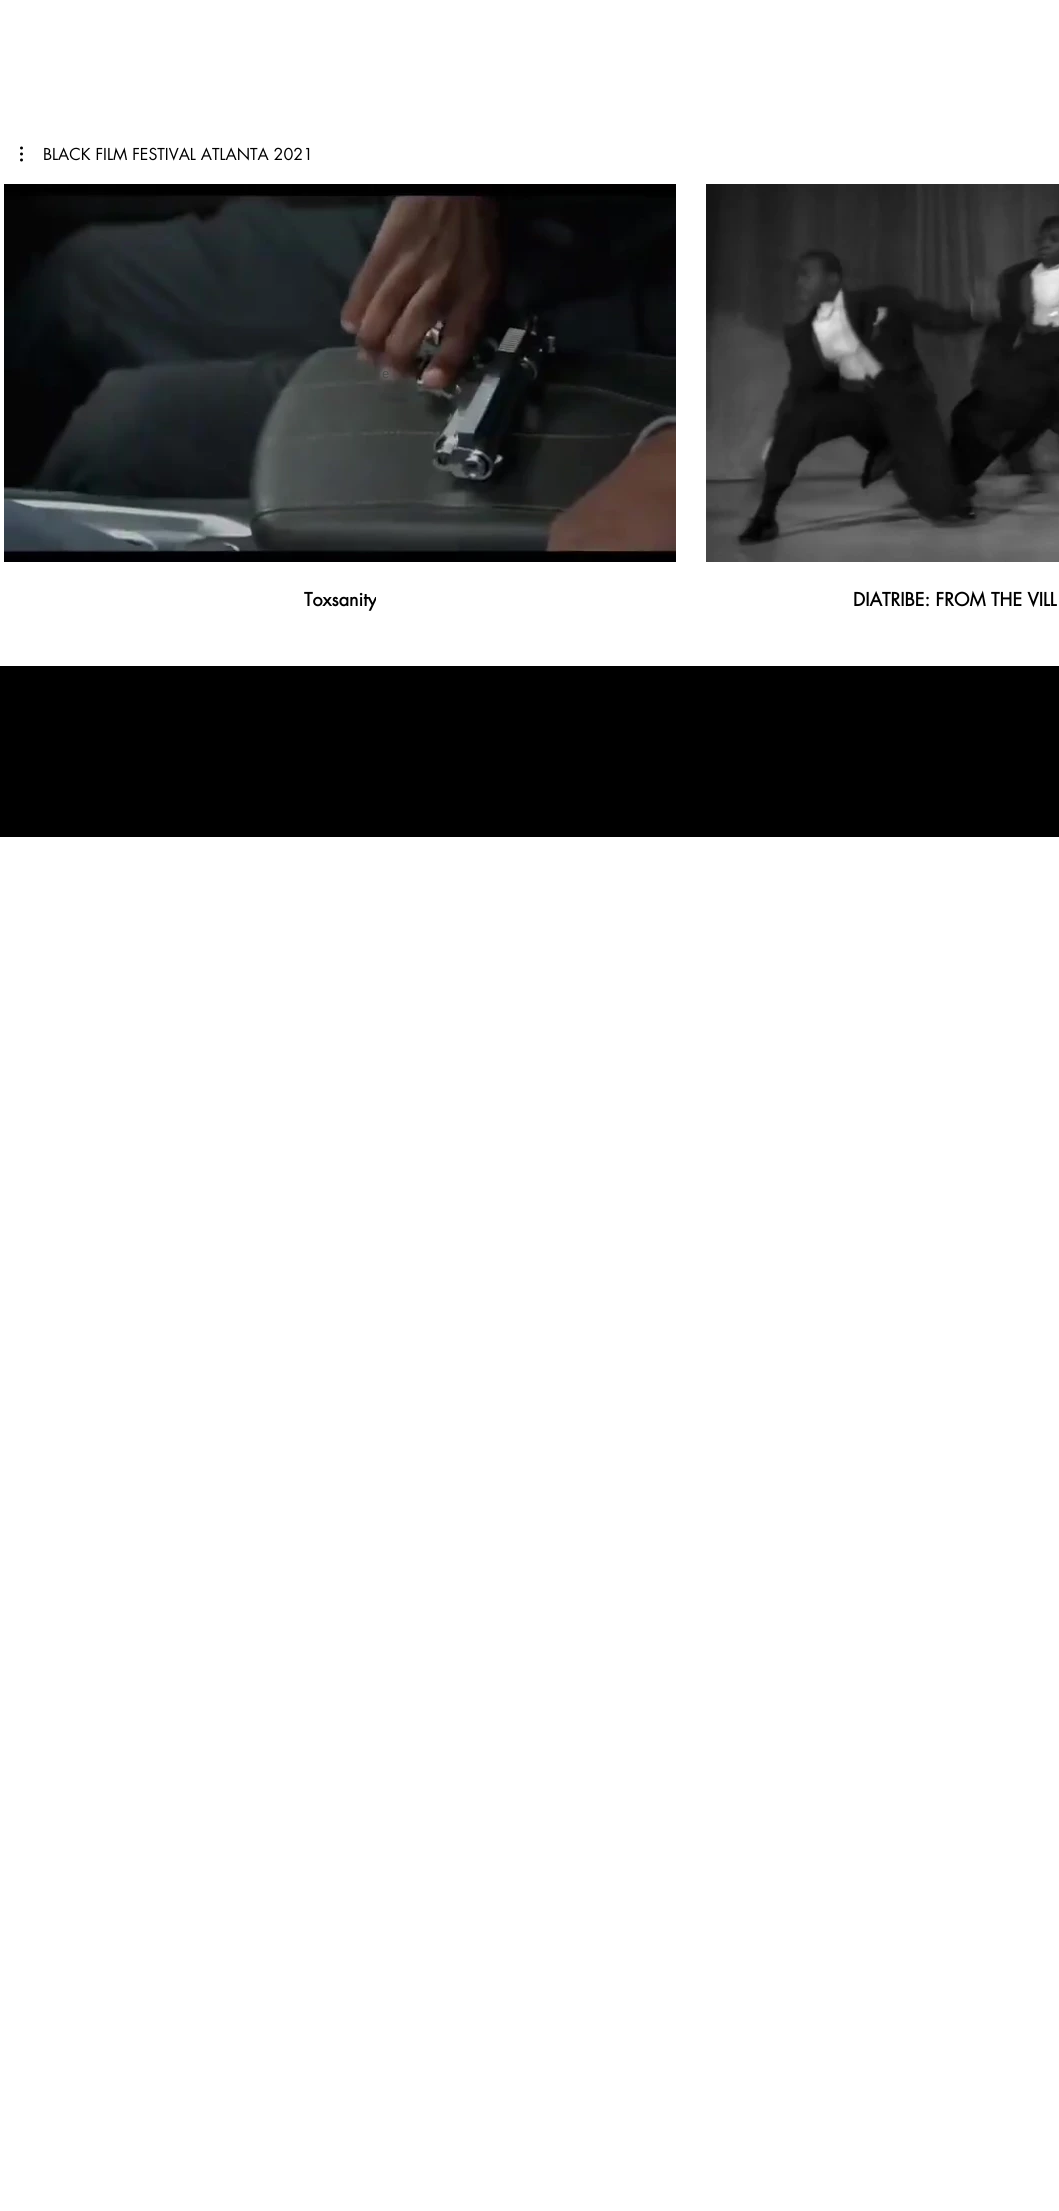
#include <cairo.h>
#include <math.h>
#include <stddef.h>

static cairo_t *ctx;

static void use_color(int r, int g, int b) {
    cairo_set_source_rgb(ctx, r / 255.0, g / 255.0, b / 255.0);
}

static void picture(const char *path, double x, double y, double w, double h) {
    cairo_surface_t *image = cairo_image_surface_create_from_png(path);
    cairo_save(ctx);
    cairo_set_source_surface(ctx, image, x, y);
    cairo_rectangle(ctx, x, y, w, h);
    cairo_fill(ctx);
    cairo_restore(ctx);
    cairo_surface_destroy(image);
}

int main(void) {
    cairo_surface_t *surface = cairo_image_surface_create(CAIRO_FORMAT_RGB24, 1059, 2211);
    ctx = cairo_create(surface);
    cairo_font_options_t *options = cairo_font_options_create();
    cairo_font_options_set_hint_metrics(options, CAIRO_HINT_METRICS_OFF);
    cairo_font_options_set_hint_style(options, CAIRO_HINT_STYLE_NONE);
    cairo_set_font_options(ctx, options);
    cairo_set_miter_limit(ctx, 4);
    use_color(255, 255, 255);
    cairo_paint(ctx);
    picture("img1.png", 20, 146, 3, 16);
    cairo_select_font_face(ctx, "futura", CAIRO_FONT_SLANT_NORMAL, CAIRO_FONT_WEIGHT_NORMAL);
    cairo_set_font_size(ctx, 16);
    use_color(0, 0, 0);
    cairo_move_to(ctx, 43, 160);
    cairo_show_text(ctx, "BLACK FILM FESTIVAL ATLANTA 2021");
    picture("img2.png", 4, 184, 672, 378);
    cairo_select_font_face(ctx, "Liberation Sans", CAIRO_FONT_SLANT_NORMAL, CAIRO_FONT_WEIGHT_NORMAL);
    cairo_set_font_size(ctx, 13);
    use_color(74, 74, 71);
    cairo_move_to(ctx, 382, 378);
    cairo_show_text(ctx, "e");
    cairo_save(ctx);
    cairo_rectangle(ctx, 304, 586, 72, 26);
    cairo_clip(ctx);
    cairo_select_font_face(ctx, "futura", CAIRO_FONT_SLANT_NORMAL, CAIRO_FONT_WEIGHT_BOLD);
    cairo_set_font_size(ctx, 18);
    use_color(0, 0, 0);
    cairo_move_to(ctx, 304, 606);
    cairo_show_text(ctx, "Toxsanity");
    cairo_restore(ctx);
    picture("img3.png", 706, 184, 353, 378);
    cairo_select_font_face(ctx, "futura", CAIRO_FONT_SLANT_NORMAL, CAIRO_FONT_WEIGHT_BOLD);
    cairo_set_font_size(ctx, 18);
    use_color(0, 0, 0);
    cairo_move_to(ctx, 853, 606);
    cairo_show_text(ctx, "DIATRIBE: FROM THE VILL");
    cairo_rectangle(ctx, 0, 666, 1059, 171);
    cairo_fill(ctx);
    cairo_surface_write_to_png(surface, "result.png");
    cairo_font_options_destroy(options);
    cairo_destroy(ctx);
    cairo_surface_destroy(surface);
    return 0;
}
